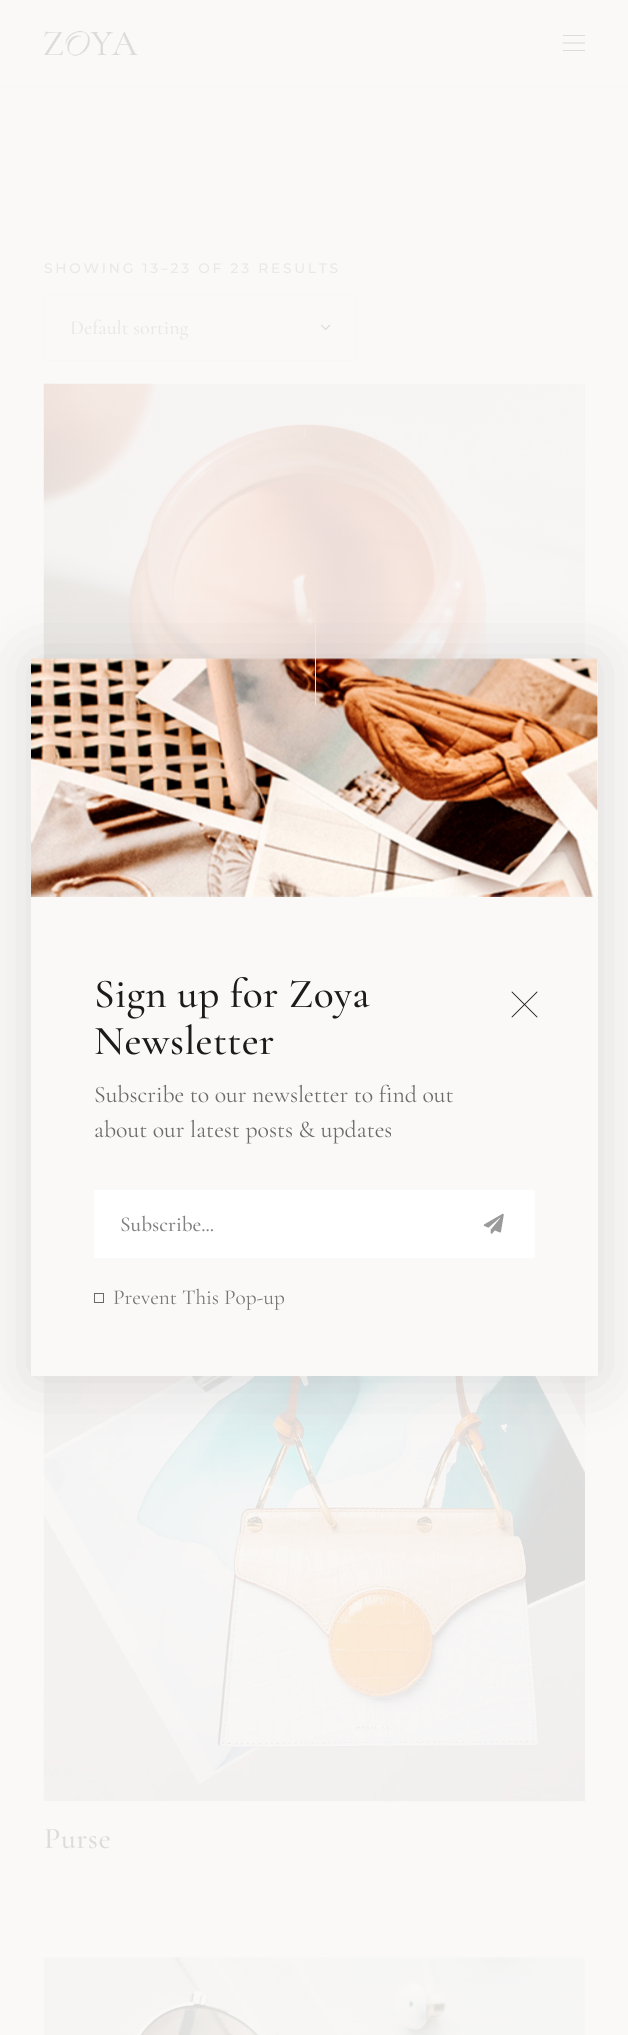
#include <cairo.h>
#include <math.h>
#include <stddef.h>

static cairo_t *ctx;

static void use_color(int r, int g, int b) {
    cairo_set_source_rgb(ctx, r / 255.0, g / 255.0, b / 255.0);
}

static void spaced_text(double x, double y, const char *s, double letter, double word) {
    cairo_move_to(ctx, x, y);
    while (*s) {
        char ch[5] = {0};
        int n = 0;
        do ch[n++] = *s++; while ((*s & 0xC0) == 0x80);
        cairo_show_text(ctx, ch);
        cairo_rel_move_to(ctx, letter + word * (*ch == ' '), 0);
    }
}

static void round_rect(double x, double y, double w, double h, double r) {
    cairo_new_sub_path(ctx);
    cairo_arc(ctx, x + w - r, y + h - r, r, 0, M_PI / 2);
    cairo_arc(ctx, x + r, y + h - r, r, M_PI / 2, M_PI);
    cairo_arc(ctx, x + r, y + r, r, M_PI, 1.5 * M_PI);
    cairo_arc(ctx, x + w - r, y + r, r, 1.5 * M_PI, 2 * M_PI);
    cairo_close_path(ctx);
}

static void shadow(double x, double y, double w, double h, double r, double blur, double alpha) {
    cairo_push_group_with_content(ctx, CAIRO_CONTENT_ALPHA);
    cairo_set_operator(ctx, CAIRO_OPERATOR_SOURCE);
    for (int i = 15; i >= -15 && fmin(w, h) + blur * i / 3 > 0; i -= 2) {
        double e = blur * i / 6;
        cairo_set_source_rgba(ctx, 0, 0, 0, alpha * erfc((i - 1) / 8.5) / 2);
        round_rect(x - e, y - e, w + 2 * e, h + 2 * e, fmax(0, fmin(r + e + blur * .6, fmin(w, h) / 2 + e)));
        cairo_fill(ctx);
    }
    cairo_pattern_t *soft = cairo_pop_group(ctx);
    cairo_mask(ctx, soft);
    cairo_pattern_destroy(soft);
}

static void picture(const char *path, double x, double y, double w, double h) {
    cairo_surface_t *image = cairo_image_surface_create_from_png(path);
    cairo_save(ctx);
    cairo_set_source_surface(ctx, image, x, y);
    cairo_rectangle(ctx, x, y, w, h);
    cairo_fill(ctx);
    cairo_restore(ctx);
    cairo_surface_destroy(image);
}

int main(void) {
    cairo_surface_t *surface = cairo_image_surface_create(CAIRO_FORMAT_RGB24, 628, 2035);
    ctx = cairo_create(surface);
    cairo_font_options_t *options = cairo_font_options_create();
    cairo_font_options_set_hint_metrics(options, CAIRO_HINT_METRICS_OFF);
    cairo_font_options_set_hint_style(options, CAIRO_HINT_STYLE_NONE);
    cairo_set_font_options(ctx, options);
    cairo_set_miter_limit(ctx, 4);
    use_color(250, 249, 247);
    cairo_paint(ctx);
    picture("img1.png", 44, 30, 94, 26);
    use_color(221, 220, 218);
    cairo_rectangle(ctx, 563, 35, 22, 1);
    cairo_fill(ctx);
    cairo_new_path(ctx);
    cairo_move_to(ctx, 562.5, 43);
    cairo_line_to(ctx, 585, 43);
    cairo_set_line_width(ctx, 1.2);
    cairo_stroke(ctx);
    cairo_rectangle(ctx, 563, 50, 22, 1);
    cairo_fill(ctx);
    use_color(248, 247, 244);
    cairo_rectangle(ctx, 0, 86, 628, 1);
    cairo_fill(ctx);
    cairo_select_font_face(ctx, "Montserrat Medium", CAIRO_FONT_SLANT_NORMAL, CAIRO_FONT_WEIGHT_NORMAL);
    cairo_set_font_size(ctx, 13.75);
    use_color(233, 232, 230);
    spaced_text(44, 273, "SHOWING 13–23 OF 23 RESULTS", 2.75, 0);
    cairo_rectangle(ctx, 44.5, 294.5, 311, 66);
    use_color(248, 247, 244);
    cairo_set_line_width(ctx, 1);
    cairo_stroke(ctx);
    cairo_select_font_face(ctx, "Cormorant Garamond Medium", CAIRO_FONT_SLANT_NORMAL, CAIRO_FONT_WEIGHT_NORMAL);
    cairo_set_font_size(ctx, 20);
    use_color(233, 232, 230);
    cairo_move_to(ctx, 70, 334);
    cairo_show_text(ctx, "Default sorting");
    picture("img2.png", 321, 324, 10, 6);
    picture("img3.png", 43, 383, 542, 276);
    picture("img4.png", 43, 1376, 542, 426);
    cairo_set_font_size(ctx, 30);
    use_color(221, 220, 218);
    spaced_text(44, 1848, "Purse", 0.5, 0);
    picture("img5.png", 43, 1957, 542, 78);
    use_color(51, 49, 48);
    shadow(31, 659, 568, 719, 0, 31, 0.15);
    use_color(250, 249, 247);
    cairo_rectangle(ctx, 31, 659, 567, 717);
    cairo_fill(ctx);
    picture("img6.png", 31, 658, 567, 239);
    use_color(238, 230, 226);
    cairo_rectangle(ctx, 315, 580, 1, 125);
    cairo_fill(ctx);
    cairo_set_font_size(ctx, 41.25);
    use_color(27, 27, 27);
    spaced_text(94, 1007, "Sign up for Zoya", 0.4, 0);
    spaced_text(94, 1054, "Newsletter", 0.4, 0);
    cairo_new_path(ctx);
    cairo_move_to(ctx, 537, 992);
    cairo_line_to(ctx, 512, 1017);
    cairo_move_to(ctx, 512, 992);
    cairo_line_to(ctx, 537, 1017);
    cairo_set_line_width(ctx, 0.9);
    cairo_set_line_cap(ctx, CAIRO_LINE_CAP_ROUND);
    cairo_set_line_join(ctx, CAIRO_LINE_JOIN_ROUND);
    cairo_stroke(ctx);
    cairo_select_font_face(ctx, "Cormorant Garamond", CAIRO_FONT_SLANT_NORMAL, CAIRO_FONT_WEIGHT_NORMAL);
    cairo_set_font_size(ctx, 23.75);
    use_color(107, 107, 107);
    cairo_move_to(ctx, 94, 1102);
    cairo_show_text(ctx, "Subscribe to our newsletter to find out");
    cairo_move_to(ctx, 94, 1137);
    cairo_show_text(ctx, "about our latest posts & updates");
    use_color(255, 255, 255);
    cairo_rectangle(ctx, 94, 1190, 441, 68);
    cairo_fill(ctx);
    cairo_select_font_face(ctx, "Cormorant Garamond Medium", CAIRO_FONT_SLANT_NORMAL, CAIRO_FONT_WEIGHT_NORMAL);
    cairo_set_font_size(ctx, 21.25);
    use_color(128, 128, 128);
    cairo_move_to(ctx, 120, 1231);
    cairo_show_text(ctx, "Subscribe...");
    picture("img7.png", 483, 1213, 21, 21);
    cairo_rectangle(ctx, 94.5, 1293.5, 9, 9);
    use_color(105, 105, 105);
    cairo_set_line_width(ctx, 1);
    cairo_set_line_cap(ctx, CAIRO_LINE_CAP_BUTT);
    cairo_set_line_join(ctx, CAIRO_LINE_JOIN_MITER);
    cairo_stroke(ctx);
    cairo_select_font_face(ctx, "Cormorant Garamond", CAIRO_FONT_SLANT_NORMAL, CAIRO_FONT_WEIGHT_NORMAL);
    use_color(117, 117, 117);
    cairo_move_to(ctx, 113, 1304);
    cairo_show_text(ctx, "Prevent This Pop-up");
    cairo_surface_write_to_png(surface, "result.png");
    cairo_font_options_destroy(options);
    cairo_destroy(ctx);
    cairo_surface_destroy(surface);
    return 0;
}
